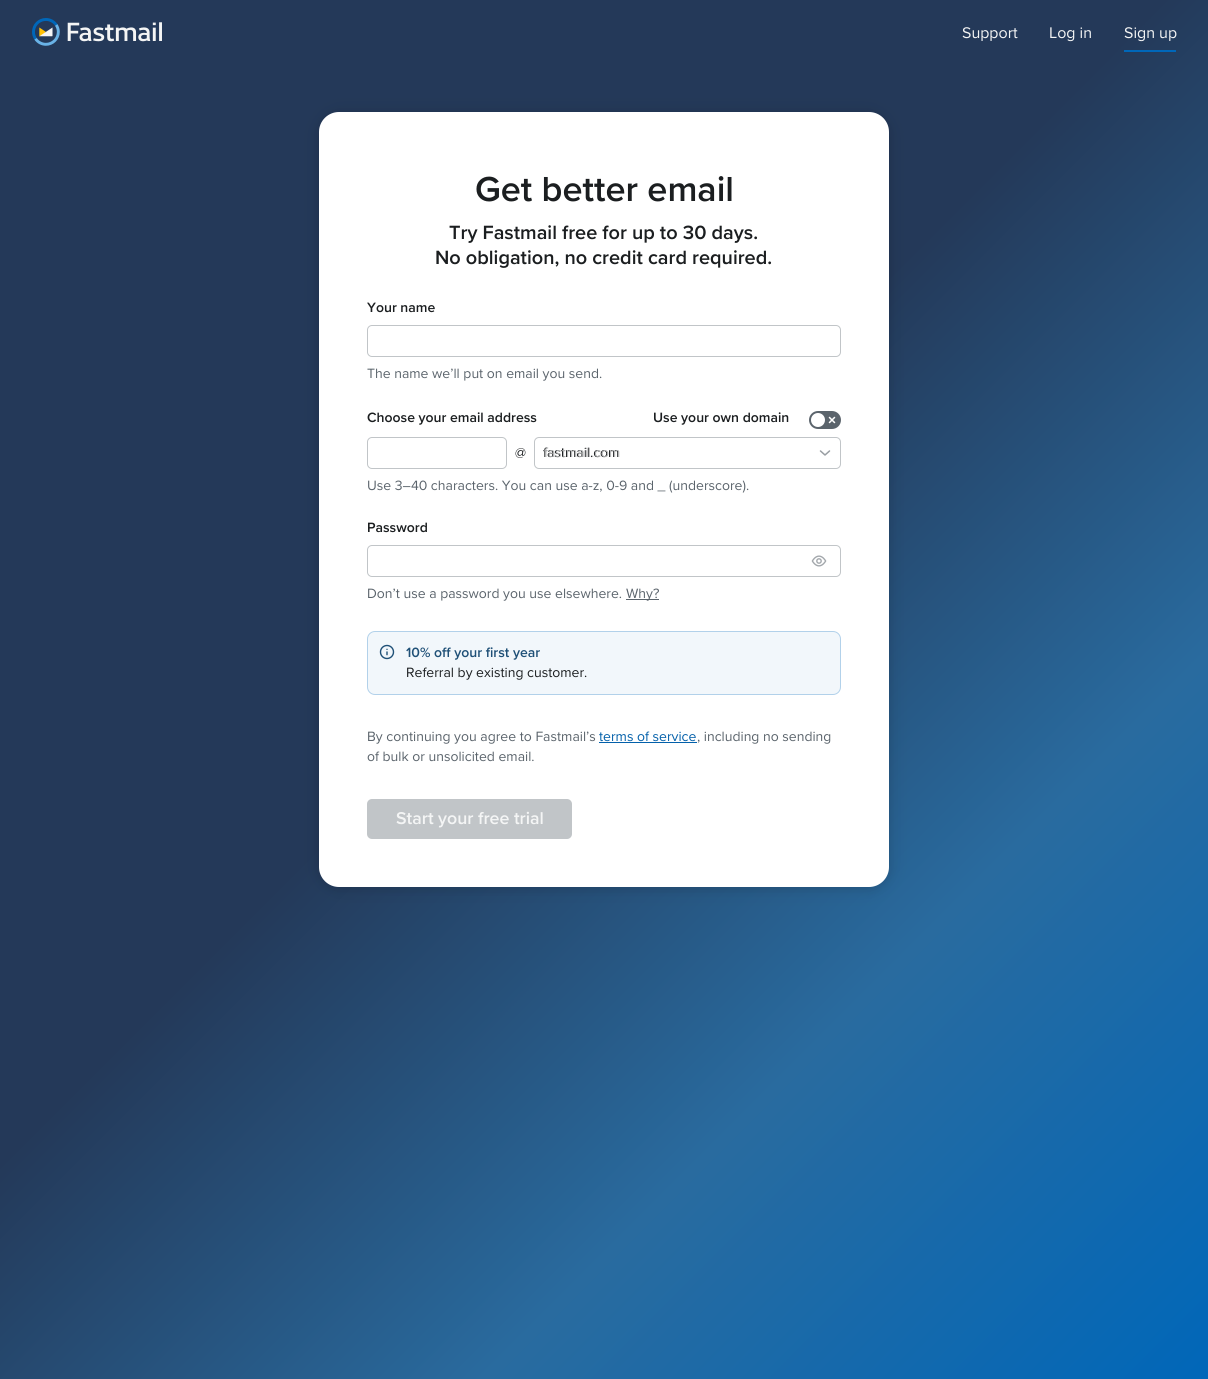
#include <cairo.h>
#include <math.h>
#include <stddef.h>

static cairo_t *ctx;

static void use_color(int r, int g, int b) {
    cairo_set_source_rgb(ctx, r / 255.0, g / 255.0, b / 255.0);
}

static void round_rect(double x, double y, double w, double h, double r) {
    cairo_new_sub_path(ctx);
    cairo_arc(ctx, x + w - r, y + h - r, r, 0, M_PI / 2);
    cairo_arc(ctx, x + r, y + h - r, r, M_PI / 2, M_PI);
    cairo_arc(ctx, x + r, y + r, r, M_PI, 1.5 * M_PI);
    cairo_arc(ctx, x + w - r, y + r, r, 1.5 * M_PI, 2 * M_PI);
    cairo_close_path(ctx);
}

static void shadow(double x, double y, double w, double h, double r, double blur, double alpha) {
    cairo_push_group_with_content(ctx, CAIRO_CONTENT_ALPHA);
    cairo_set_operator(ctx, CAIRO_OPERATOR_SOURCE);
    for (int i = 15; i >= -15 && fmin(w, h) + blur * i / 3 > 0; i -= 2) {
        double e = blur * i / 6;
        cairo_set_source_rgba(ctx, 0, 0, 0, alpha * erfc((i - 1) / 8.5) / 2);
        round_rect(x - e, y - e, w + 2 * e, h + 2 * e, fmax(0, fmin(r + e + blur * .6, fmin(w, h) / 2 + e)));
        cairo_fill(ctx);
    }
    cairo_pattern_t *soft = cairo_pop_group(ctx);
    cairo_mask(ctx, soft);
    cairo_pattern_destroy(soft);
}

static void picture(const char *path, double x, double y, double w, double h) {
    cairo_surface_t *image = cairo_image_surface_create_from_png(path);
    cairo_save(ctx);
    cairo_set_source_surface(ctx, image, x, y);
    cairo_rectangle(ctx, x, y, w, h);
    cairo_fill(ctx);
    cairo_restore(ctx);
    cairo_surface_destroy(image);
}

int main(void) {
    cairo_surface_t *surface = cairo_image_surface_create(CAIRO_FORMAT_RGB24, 1208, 1379);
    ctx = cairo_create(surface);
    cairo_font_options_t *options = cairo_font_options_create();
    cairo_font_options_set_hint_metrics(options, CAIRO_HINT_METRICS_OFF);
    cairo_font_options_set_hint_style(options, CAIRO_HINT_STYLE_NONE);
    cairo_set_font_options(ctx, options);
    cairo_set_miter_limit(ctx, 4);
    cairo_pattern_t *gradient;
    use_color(255, 255, 255);
    cairo_paint(ctx);
    gradient = cairo_pattern_create_linear(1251, 1336, -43, 43);
    cairo_pattern_add_color_stop_rgba(gradient, 0, 0, 0.404, 0.725, 1);
    cairo_pattern_add_color_stop_rgba(gradient, 0.28, 0.161, 0.42, 0.624, 1);
    cairo_pattern_add_color_stop_rgba(gradient, 0.55, 0.141, 0.224, 0.349, 1);
    cairo_set_source(ctx, gradient);
    cairo_pattern_destroy(gradient);
    cairo_rectangle(ctx, 0, 0, 1208, 1379);
    cairo_fill(ctx);
    picture("img1.png", 32, 18, 130, 28);
    cairo_select_font_face(ctx, "Proxima Nova", CAIRO_FONT_SLANT_NORMAL, CAIRO_FONT_WEIGHT_NORMAL);
    cairo_set_font_size(ctx, 16);
    use_color(244, 245, 245);
    cairo_move_to(ctx, 962, 38);
    cairo_show_text(ctx, "Support");
    cairo_move_to(ctx, 1049, 38);
    cairo_show_text(ctx, "Log in");
    cairo_move_to(ctx, 1124, 38);
    cairo_show_text(ctx, "Sign up");
    use_color(0, 103, 185);
    cairo_rectangle(ctx, 1124, 50, 52, 2);
    cairo_fill(ctx);
    use_color(0, 0, 0);
    shadow(319, 113, 570, 775, 20, 10, 0.1);
    shadow(319, 114, 570, 775, 20, 5, 0.1);
    use_color(255, 255, 255);
    round_rect(319, 112, 570, 775, 20);
    cairo_fill(ctx);
    cairo_select_font_face(ctx, "Proxima Nova SemiBold", CAIRO_FONT_SLANT_NORMAL, CAIRO_FONT_WEIGHT_NORMAL);
    cairo_set_font_size(ctx, 36);
    use_color(27, 30, 32);
    cairo_move_to(ctx, 475, 201);
    cairo_show_text(ctx, "Get better email");
    cairo_set_font_size(ctx, 19.9);
    cairo_move_to(ctx, 449, 239);
    cairo_show_text(ctx, "Try Fastmail free for up to 30 days.");
    cairo_move_to(ctx, 435, 264);
    cairo_show_text(ctx, "No obligation, no credit card required.");
    cairo_set_font_size(ctx, 14);
    cairo_move_to(ctx, 367, 312);
    cairo_show_text(ctx, "Your name");
    round_rect(367.5, 325.5, 473, 31, 4.5);
    use_color(193, 197, 200);
    cairo_set_line_width(ctx, 1);
    cairo_stroke(ctx);
    cairo_select_font_face(ctx, "Proxima Nova", CAIRO_FONT_SLANT_NORMAL, CAIRO_FONT_WEIGHT_NORMAL);
    use_color(91, 100, 108);
    cairo_move_to(ctx, 367, 378);
    cairo_show_text(ctx, "The name weʼll put on email you send.");
    cairo_select_font_face(ctx, "Proxima Nova SemiBold", CAIRO_FONT_SLANT_NORMAL, CAIRO_FONT_WEIGHT_NORMAL);
    use_color(27, 30, 32);
    cairo_move_to(ctx, 367, 422);
    cairo_show_text(ctx, "Choose your email address");
    cairo_move_to(ctx, 653, 422);
    cairo_show_text(ctx, "Use your own domain");
    use_color(91, 100, 108);
    round_rect(809, 411, 32, 18, 9);
    cairo_fill(ctx);
    cairo_new_path(ctx);
    cairo_move_to(ctx, 815, 420.5);
    cairo_line_to(ctx, 816.5, 422.5);
    cairo_line_to(ctx, 821, 417.5);
    cairo_move_to(ctx, 834.5, 417.5);
    cairo_line_to(ctx, 829.5, 422.5);
    cairo_move_to(ctx, 829.5, 417.5);
    cairo_line_to(ctx, 834.5, 422.5);
    use_color(255, 255, 255);
    cairo_set_line_width(ctx, 1.5);
    cairo_set_line_cap(ctx, CAIRO_LINE_CAP_ROUND);
    cairo_set_line_join(ctx, CAIRO_LINE_JOIN_ROUND);
    cairo_stroke(ctx);
    cairo_arc(ctx, 818, 420, 7, 0, 2 * M_PI);
    cairo_fill(ctx);
    round_rect(367.5, 437.5, 139, 31, 4.5);
    use_color(193, 197, 200);
    cairo_set_line_width(ctx, 1);
    cairo_set_line_cap(ctx, CAIRO_LINE_CAP_BUTT);
    cairo_set_line_join(ctx, CAIRO_LINE_JOIN_MITER);
    cairo_stroke(ctx);
    cairo_select_font_face(ctx, "Proxima Nova", CAIRO_FONT_SLANT_NORMAL, CAIRO_FONT_WEIGHT_NORMAL);
    use_color(27, 30, 32);
    cairo_move_to(ctx, 515, 457);
    cairo_show_text(ctx, "@");
    round_rect(534.5, 437.5, 306, 31, 4.5);
    use_color(193, 197, 200);
    cairo_stroke(ctx);
    use_color(27, 30, 32);
    cairo_move_to(ctx, 543, 457);
    cairo_show_text(ctx, "fastmail.com");
    use_color(179, 180, 181);
    cairo_move_to(ctx, 544, 457);
    cairo_show_text(ctx, "fastmail.com");
    cairo_new_path(ctx);
    cairo_move_to(ctx, 829.5, 451);
    cairo_line_to(ctx, 825, 455);
    cairo_line_to(ctx, 820.5, 451);
    use_color(153, 158, 163);
    cairo_set_line_width(ctx, 1.5);
    cairo_set_line_cap(ctx, CAIRO_LINE_CAP_ROUND);
    cairo_set_line_join(ctx, CAIRO_LINE_JOIN_ROUND);
    cairo_stroke(ctx);
    use_color(91, 100, 108);
    cairo_move_to(ctx, 367, 490);
    cairo_show_text(ctx, "Use 3–40 characters. You can use a-z, 0-9 and _ (underscore).");
    cairo_select_font_face(ctx, "Proxima Nova SemiBold", CAIRO_FONT_SLANT_NORMAL, CAIRO_FONT_WEIGHT_NORMAL);
    use_color(27, 30, 32);
    cairo_move_to(ctx, 367, 532);
    cairo_show_text(ctx, "Password");
    round_rect(367.5, 545.5, 473, 31, 4.5);
    use_color(193, 197, 200);
    cairo_set_line_width(ctx, 1);
    cairo_set_line_cap(ctx, CAIRO_LINE_CAP_BUTT);
    cairo_set_line_join(ctx, CAIRO_LINE_JOIN_MITER);
    cairo_stroke(ctx);
    picture("img2.png", 811, 555, 16, 12);
    cairo_select_font_face(ctx, "Proxima Nova", CAIRO_FONT_SLANT_NORMAL, CAIRO_FONT_WEIGHT_NORMAL);
    use_color(91, 100, 108);
    cairo_move_to(ctx, 367, 598);
    cairo_show_text(ctx, "Don’t use a password you use elsewhere.");
    cairo_rectangle(ctx, 626, 599, 33, 1);
    cairo_fill(ctx);
    cairo_move_to(ctx, 626, 598);
    cairo_show_text(ctx, "Why?");
    use_color(242, 247, 251);
    round_rect(367.5, 631.5, 473, 63, 7.5);
    cairo_fill_preserve(ctx);
    use_color(178, 209, 234);
    cairo_stroke(ctx);
    picture("img3.png", 379, 644, 16, 16);
    cairo_select_font_face(ctx, "Proxima Nova SemiBold", CAIRO_FONT_SLANT_NORMAL, CAIRO_FONT_WEIGHT_NORMAL);
    use_color(31, 80, 119);
    cairo_move_to(ctx, 406, 657);
    cairo_show_text(ctx, "10% off your first year");
    cairo_select_font_face(ctx, "Proxima Nova", CAIRO_FONT_SLANT_NORMAL, CAIRO_FONT_WEIGHT_NORMAL);
    use_color(27, 30, 32);
    cairo_move_to(ctx, 406, 677);
    cairo_show_text(ctx, "Referral by existing customer.");
    use_color(91, 100, 108);
    cairo_move_to(ctx, 367, 741);
    cairo_show_text(ctx, "By continuing you agree to Fastmail’s");
    use_color(3, 96, 170);
    cairo_move_to(ctx, 599, 741);
    cairo_show_text(ctx, "terms of service");
    cairo_rectangle(ctx, 599, 742, 98, 1);
    cairo_fill(ctx);
    use_color(91, 100, 108);
    cairo_move_to(ctx, 697, 741);
    cairo_show_text(ctx, ", including no sending");
    cairo_move_to(ctx, 367, 761);
    cairo_show_text(ctx, "of bulk or unsolicited email.");
    use_color(193, 197, 200);
    round_rect(367, 799, 205, 40, 5);
    cairo_fill(ctx);
    cairo_select_font_face(ctx, "Proxima Nova SemiBold", CAIRO_FONT_SLANT_NORMAL, CAIRO_FONT_WEIGHT_NORMAL);
    cairo_set_font_size(ctx, 17.75);
    use_color(244, 245, 245);
    cairo_move_to(ctx, 396, 824);
    cairo_show_text(ctx, "Start your free trial");
    cairo_surface_write_to_png(surface, "result.png");
    cairo_font_options_destroy(options);
    cairo_destroy(ctx);
    cairo_surface_destroy(surface);
    return 0;
}
